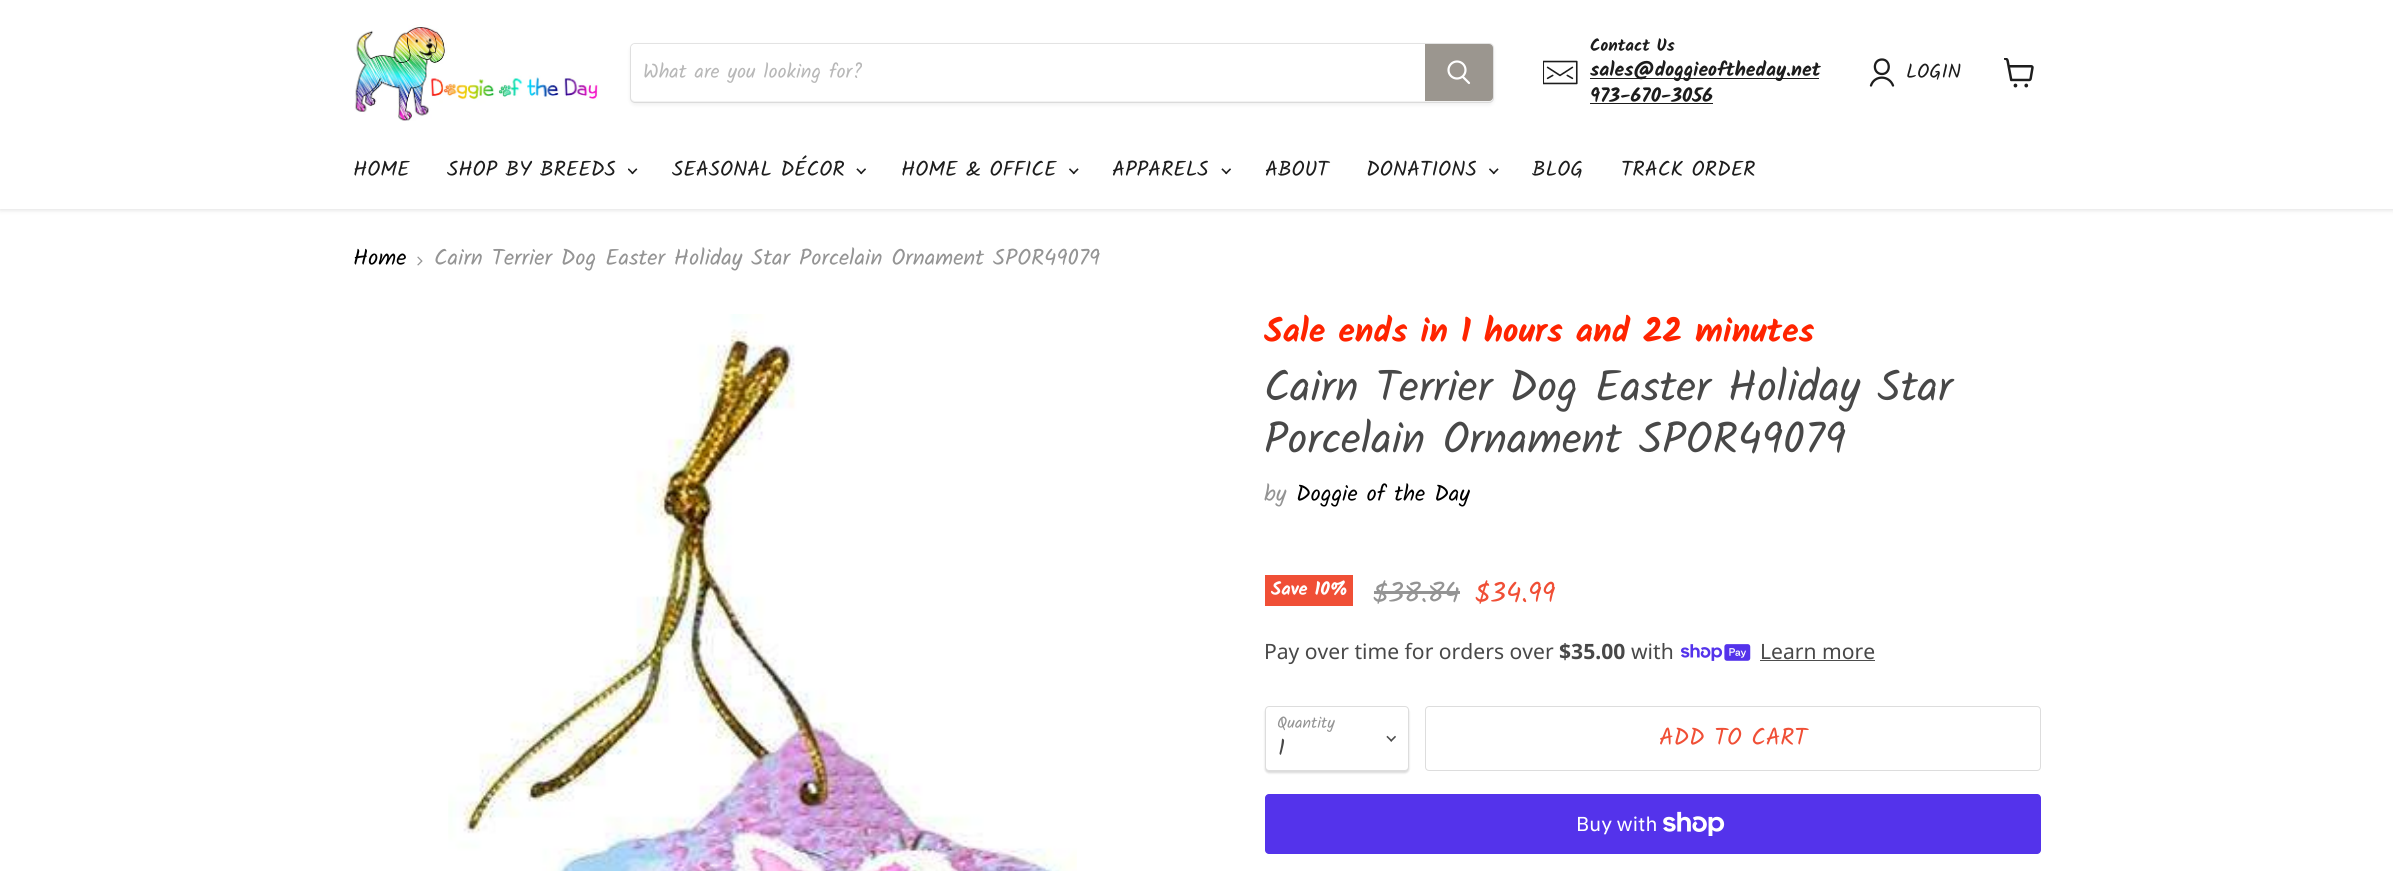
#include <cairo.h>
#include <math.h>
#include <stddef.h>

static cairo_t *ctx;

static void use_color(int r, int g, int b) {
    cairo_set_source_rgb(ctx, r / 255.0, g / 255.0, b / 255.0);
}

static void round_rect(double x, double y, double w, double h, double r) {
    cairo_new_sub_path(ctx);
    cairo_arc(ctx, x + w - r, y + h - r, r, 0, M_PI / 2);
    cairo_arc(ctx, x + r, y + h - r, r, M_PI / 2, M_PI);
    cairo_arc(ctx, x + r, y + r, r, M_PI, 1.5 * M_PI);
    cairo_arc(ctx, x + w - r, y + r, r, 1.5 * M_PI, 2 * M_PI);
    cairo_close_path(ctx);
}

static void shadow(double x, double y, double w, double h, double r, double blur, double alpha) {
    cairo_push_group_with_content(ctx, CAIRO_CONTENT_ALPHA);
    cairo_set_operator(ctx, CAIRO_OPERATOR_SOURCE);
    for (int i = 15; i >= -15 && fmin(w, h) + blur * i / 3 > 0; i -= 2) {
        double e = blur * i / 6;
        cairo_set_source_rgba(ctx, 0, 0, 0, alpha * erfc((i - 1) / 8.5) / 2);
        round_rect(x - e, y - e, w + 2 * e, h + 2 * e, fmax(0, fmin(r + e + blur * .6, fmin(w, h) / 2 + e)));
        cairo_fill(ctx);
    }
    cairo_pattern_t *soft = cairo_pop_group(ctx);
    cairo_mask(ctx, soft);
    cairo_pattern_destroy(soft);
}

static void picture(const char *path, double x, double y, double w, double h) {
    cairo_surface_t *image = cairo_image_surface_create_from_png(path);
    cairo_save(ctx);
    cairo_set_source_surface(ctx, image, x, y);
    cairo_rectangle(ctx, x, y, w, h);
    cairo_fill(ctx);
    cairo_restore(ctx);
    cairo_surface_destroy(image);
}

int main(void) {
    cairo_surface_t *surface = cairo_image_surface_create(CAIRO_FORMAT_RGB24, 2393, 871);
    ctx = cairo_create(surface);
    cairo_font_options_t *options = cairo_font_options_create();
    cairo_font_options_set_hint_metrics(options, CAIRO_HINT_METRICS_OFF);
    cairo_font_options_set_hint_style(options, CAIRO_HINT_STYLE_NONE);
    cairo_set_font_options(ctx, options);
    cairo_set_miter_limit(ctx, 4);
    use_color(255, 255, 255);
    cairo_paint(ctx);
    use_color(128, 128, 128);
    shadow(0, 1, 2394, 209, 0, 2.5, 0.25);
    use_color(255, 255, 255);
    cairo_rectangle(ctx, 0, 0, 2393, 209);
    cairo_fill(ctx);
    picture("img1.png", 354, 25, 245, 96);
    use_color(128, 128, 128);
    shadow(630, 45, 864, 60, 5, 2, 0.11);
    round_rect(630.5, 43.5, 863, 59, 4.5);
    cairo_set_source_rgba(ctx, 0.502, 0.502, 0.502, 0.2);
    cairo_set_line_width(ctx, 1);
    cairo_stroke(ctx);
    use_color(255, 255, 255);
    cairo_new_path(ctx);
    cairo_move_to(ctx, 635, 44);
    cairo_line_to(ctx, 1425, 44);
    cairo_line_to(ctx, 1425, 101);
    cairo_line_to(ctx, 635, 101);
    cairo_curve_to(ctx, 633, 101, 631, 99, 631, 97);
    cairo_line_to(ctx, 631, 48);
    cairo_curve_to(ctx, 631, 46, 633, 44, 635, 44);
    cairo_close_path(ctx);
    cairo_fill(ctx);
    cairo_select_font_face(ctx, "Kalam", CAIRO_FONT_SLANT_NORMAL, CAIRO_FONT_WEIGHT_NORMAL);
    cairo_set_font_size(ctx, 20);
    use_color(184, 184, 184);
    cairo_move_to(ctx, 643, 78);
    cairo_show_text(ctx, "What are you looking for?");
    use_color(155, 150, 143);
    cairo_new_path(ctx);
    cairo_move_to(ctx, 1425.5, 44.5);
    cairo_line_to(ctx, 1489, 44.5);
    cairo_curve_to(ctx, 1491, 44.5, 1492.5, 46, 1492.5, 48);
    cairo_line_to(ctx, 1492.5, 97);
    cairo_curve_to(ctx, 1492.5, 99, 1491, 100.5, 1489, 100.5);
    cairo_line_to(ctx, 1425.5, 100.5);
    cairo_close_path(ctx);
    cairo_fill_preserve(ctx);
    cairo_stroke(ctx);
    cairo_new_path(ctx);
    cairo_move_to(ctx, 1469, 83);
    cairo_line_to(ctx, 1463, 77);
    use_color(255, 255, 255);
    cairo_set_line_width(ctx, 2.2);
    cairo_set_line_cap(ctx, CAIRO_LINE_CAP_ROUND);
    cairo_stroke(ctx);
    cairo_arc(ctx, 1457, 70, 8.5, 0, 2 * M_PI);
    cairo_set_line_cap(ctx, CAIRO_LINE_CAP_BUTT);
    cairo_stroke(ctx);
    picture("img2.png", 1543, 60, 35, 25);
    cairo_select_font_face(ctx, "Kalam", CAIRO_FONT_SLANT_NORMAL, CAIRO_FONT_WEIGHT_BOLD);
    cairo_set_font_size(ctx, 17);
    use_color(29, 29, 29);
    cairo_move_to(ctx, 1590, 51);
    cairo_show_text(ctx, "Contact Us");
    cairo_rectangle(ctx, 1590, 78, 229, 1);
    cairo_fill(ctx);
    cairo_set_font_size(ctx, 19.75);
    cairo_move_to(ctx, 1590, 76);
    cairo_show_text(ctx, "sales@doggieoftheday.net");
    cairo_move_to(ctx, 1590, 102);
    cairo_show_text(ctx, "973-670-3056");
    cairo_rectangle(ctx, 1590, 103, 123, 1);
    cairo_fill(ctx);
    cairo_new_path(ctx);
    cairo_move_to(ctx, 1882, 74);
    cairo_curve_to(ctx, 1891, 74, 1891, 59.5, 1882, 59.5);
    cairo_curve_to(ctx, 1872.5, 59.5, 1872.5, 74, 1882, 74);
    cairo_close_path(ctx);
    cairo_move_to(ctx, 1893, 85.5);
    cairo_curve_to(ctx, 1889, 75, 1874.5, 75, 1871, 85.5);
    cairo_set_line_width(ctx, 2.3);
    cairo_set_line_cap(ctx, CAIRO_LINE_CAP_ROUND);
    cairo_set_line_join(ctx, CAIRO_LINE_JOIN_ROUND);
    cairo_stroke(ctx);
    cairo_select_font_face(ctx, "Kalam", CAIRO_FONT_SLANT_NORMAL, CAIRO_FONT_WEIGHT_NORMAL);
    cairo_set_font_size(ctx, 20);
    cairo_move_to(ctx, 1906, 78);
    cairo_show_text(ctx, "LOGIN");
    picture("img3.png", 2004, 58, 30, 30);
    cairo_set_font_size(ctx, 21.25);
    cairo_move_to(ctx, 353, 176);
    cairo_show_text(ctx, "HOME");
    cairo_move_to(ctx, 447, 176);
    cairo_show_text(ctx, "SHOP BY BREEDS");
    picture("img4.png", 628, 168, 10, 7);
    cairo_move_to(ctx, 672, 176);
    cairo_show_text(ctx, "SEASONAL DÉCOR");
    picture("img5.png", 856, 168, 10, 7);
    cairo_move_to(ctx, 901, 176);
    cairo_show_text(ctx, "HOME & OFFICE");
    picture("img6.png", 1069, 168, 10, 7);
    cairo_move_to(ctx, 1112, 176);
    cairo_show_text(ctx, "APPARELS");
    picture("img5.png", 1221, 168, 10, 7);
    cairo_move_to(ctx, 1265, 176);
    cairo_show_text(ctx, "ABOUT");
    cairo_move_to(ctx, 1366, 176);
    cairo_show_text(ctx, "DONATIONS");
    picture("img6.png", 1489, 168, 10, 7);
    cairo_move_to(ctx, 1532, 176);
    cairo_show_text(ctx, "BLOG");
    cairo_move_to(ctx, 1621, 176);
    cairo_show_text(ctx, "TRACK ORDER");
    cairo_set_font_size(ctx, 22.5);
    use_color(0, 0, 0);
    cairo_move_to(ctx, 353, 265);
    cairo_show_text(ctx, "Home");
    picture("img7.png", 417, 256, 6, 10);
    use_color(148, 148, 148);
    cairo_move_to(ctx, 434, 265);
    cairo_show_text(ctx, "Cairn Terrier Dog Easter Holiday Star Porcelain Ornament SPOR49079");
    picture("img8.png", 448, 314, 629, 557);
    cairo_select_font_face(ctx, "Kalam", CAIRO_FONT_SLANT_NORMAL, CAIRO_FONT_WEIGHT_BOLD);
    cairo_set_font_size(ctx, 33.75);
    use_color(255, 36, 0);
    cairo_move_to(ctx, 1264, 342);
    cairo_show_text(ctx, "Sale ends in 1 hours and 22 minutes");
    cairo_select_font_face(ctx, "Kalam", CAIRO_FONT_SLANT_NORMAL, CAIRO_FONT_WEIGHT_NORMAL);
    cairo_set_font_size(ctx, 43.5);
    use_color(72, 72, 72);
    cairo_move_to(ctx, 1264, 401);
    cairo_show_text(ctx, "Cairn Terrier Dog Easter Holiday Star");
    cairo_move_to(ctx, 1264, 453);
    cairo_show_text(ctx, "Porcelain Ornament SPOR49079");
    cairo_set_font_size(ctx, 22.5);
    use_color(148, 148, 148);
    cairo_move_to(ctx, 1264, 501);
    cairo_show_text(ctx, "by");
    use_color(0, 0, 0);
    cairo_move_to(ctx, 1296, 501);
    cairo_show_text(ctx, "Doggie of the Day");
    use_color(240, 79, 54);
    cairo_rectangle(ctx, 1265, 575, 88, 31);
    cairo_fill(ctx);
    cairo_select_font_face(ctx, "Kalam", CAIRO_FONT_SLANT_NORMAL, CAIRO_FONT_WEIGHT_BOLD);
    cairo_set_font_size(ctx, 18.5);
    use_color(255, 255, 255);
    cairo_move_to(ctx, 1271, 595);
    cairo_show_text(ctx, "Save 10%");
    cairo_select_font_face(ctx, "Kalam", CAIRO_FONT_SLANT_NORMAL, CAIRO_FONT_WEIGHT_NORMAL);
    cairo_set_font_size(ctx, 28);
    use_color(148, 148, 148);
    cairo_move_to(ctx, 1373, 602);
    cairo_show_text(ctx, "$38.84");
    cairo_rectangle(ctx, 1374, 591, 86, 3);
    cairo_fill(ctx);
    use_color(240, 79, 54);
    cairo_move_to(ctx, 1475, 602);
    cairo_show_text(ctx, "$34.99");
    cairo_select_font_face(ctx, "Noto Sans", CAIRO_FONT_SLANT_NORMAL, CAIRO_FONT_WEIGHT_NORMAL);
    cairo_set_font_size(ctx, 21.1);
    use_color(72, 72, 72);
    cairo_move_to(ctx, 1264, 659);
    cairo_show_text(ctx, "Pay over time for orders over");
    cairo_select_font_face(ctx, "Noto Sans", CAIRO_FONT_SLANT_NORMAL, CAIRO_FONT_WEIGHT_BOLD);
    cairo_move_to(ctx, 1559, 659);
    cairo_show_text(ctx, "$35.00");
    cairo_select_font_face(ctx, "Noto Sans", CAIRO_FONT_SLANT_NORMAL, CAIRO_FONT_WEIGHT_NORMAL);
    cairo_move_to(ctx, 1631, 659);
    cairo_show_text(ctx, "with");
    picture("img9.png", 1681, 644, 70, 17);
    cairo_move_to(ctx, 1760, 659);
    cairo_show_text(ctx, "Learn more");
    use_color(77, 77, 77);
    cairo_rectangle(ctx, 1760, 660, 115, 1);
    cairo_fill(ctx);
    use_color(0, 0, 0);
    shadow(1265, 708, 144, 65, 4, 1, 0.15);
    use_color(255, 255, 255);
    round_rect(1265.5, 706.5, 143, 64, 3.5);
    cairo_fill_preserve(ctx);
    use_color(221, 221, 221);
    cairo_set_line_width(ctx, 1);
    cairo_set_line_cap(ctx, CAIRO_LINE_CAP_BUTT);
    cairo_set_line_join(ctx, CAIRO_LINE_JOIN_MITER);
    cairo_stroke(ctx);
    cairo_select_font_face(ctx, "Kalam", CAIRO_FONT_SLANT_NORMAL, CAIRO_FONT_WEIGHT_NORMAL);
    cairo_set_font_size(ctx, 16);
    use_color(148, 148, 148);
    cairo_move_to(ctx, 1277, 728);
    cairo_show_text(ctx, "Quantity");
    cairo_set_font_size(ctx, 22.5);
    use_color(72, 72, 72);
    cairo_move_to(ctx, 1278, 755);
    cairo_show_text(ctx, "1");
    picture("img10.png", 1386, 735, 10, 7);
    round_rect(1425.5, 706.5, 615, 64, 3.5);
    use_color(221, 221, 221);
    cairo_stroke(ctx);
    cairo_set_font_size(ctx, 24);
    use_color(240, 79, 54);
    cairo_move_to(ctx, 1659, 745);
    cairo_show_text(ctx, "ADD TO CART");
    use_color(84, 51, 235);
    round_rect(1265, 794, 776, 60, 4);
    cairo_fill(ctx);
    cairo_select_font_face(ctx, "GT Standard", CAIRO_FONT_SLANT_NORMAL, CAIRO_FONT_WEIGHT_NORMAL);
    cairo_set_font_size(ctx, 20);
    use_color(255, 255, 255);
    cairo_move_to(ctx, 1576, 831);
    cairo_show_text(ctx, "Buy with");
    picture("img11.png", 1663, 811, 62, 25);
    cairo_surface_write_to_png(surface, "result.png");
    cairo_font_options_destroy(options);
    cairo_destroy(ctx);
    cairo_surface_destroy(surface);
    return 0;
}
